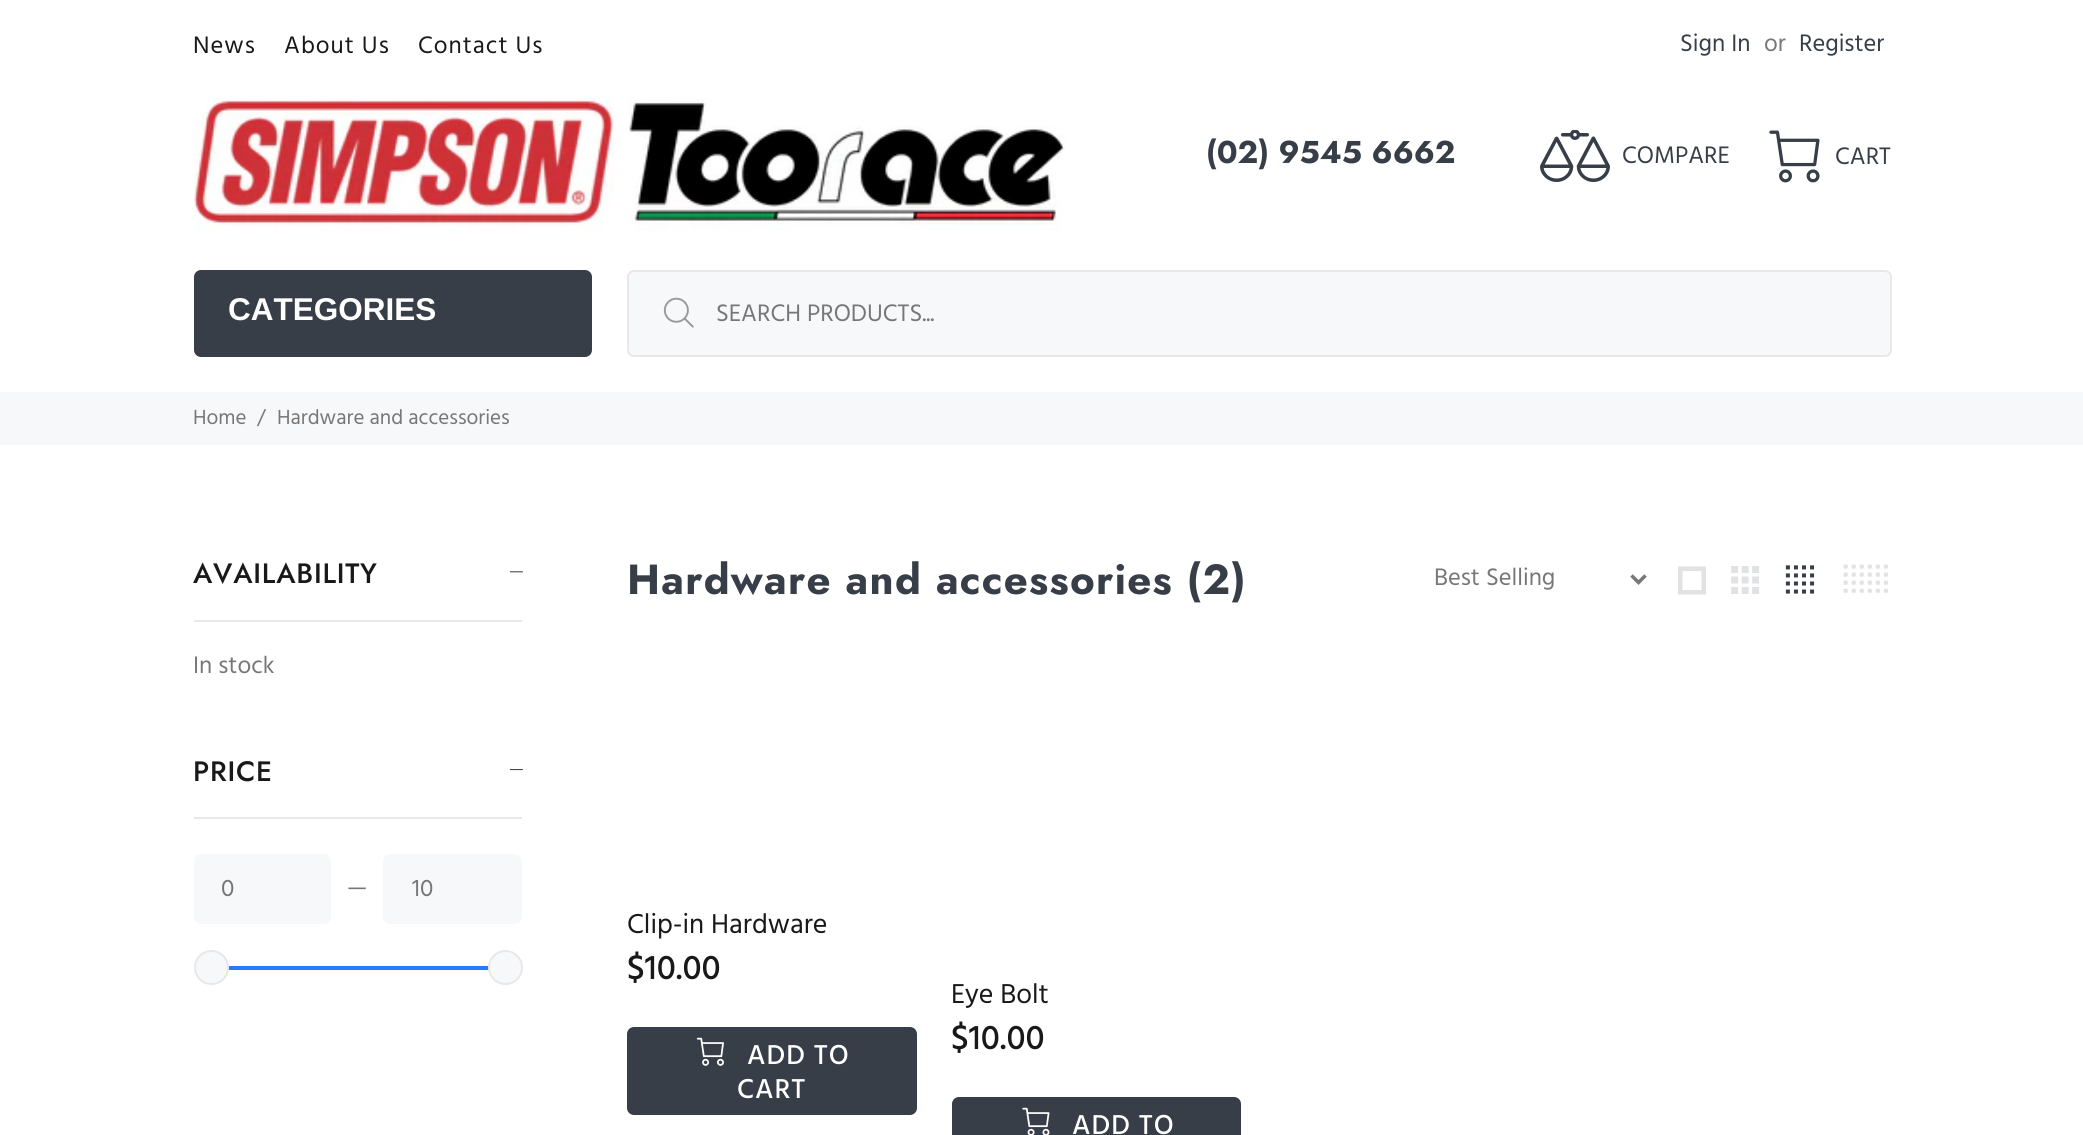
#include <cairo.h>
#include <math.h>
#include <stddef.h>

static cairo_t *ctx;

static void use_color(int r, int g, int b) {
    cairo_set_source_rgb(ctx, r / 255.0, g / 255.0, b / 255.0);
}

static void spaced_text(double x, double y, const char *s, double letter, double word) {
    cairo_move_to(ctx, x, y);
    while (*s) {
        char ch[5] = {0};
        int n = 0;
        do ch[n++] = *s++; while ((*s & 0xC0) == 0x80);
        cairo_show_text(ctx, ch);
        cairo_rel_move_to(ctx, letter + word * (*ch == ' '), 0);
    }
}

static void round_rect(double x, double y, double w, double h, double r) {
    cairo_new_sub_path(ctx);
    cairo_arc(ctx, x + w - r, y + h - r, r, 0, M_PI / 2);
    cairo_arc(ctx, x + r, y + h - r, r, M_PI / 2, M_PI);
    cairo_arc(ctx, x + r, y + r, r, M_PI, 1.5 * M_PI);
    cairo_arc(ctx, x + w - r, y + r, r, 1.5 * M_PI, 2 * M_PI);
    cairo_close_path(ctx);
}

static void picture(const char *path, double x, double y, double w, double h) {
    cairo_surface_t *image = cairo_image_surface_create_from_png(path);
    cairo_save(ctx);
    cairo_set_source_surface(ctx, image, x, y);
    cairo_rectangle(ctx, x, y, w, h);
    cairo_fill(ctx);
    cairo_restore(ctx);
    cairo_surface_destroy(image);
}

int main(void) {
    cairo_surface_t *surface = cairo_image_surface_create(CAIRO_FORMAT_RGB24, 2083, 1135);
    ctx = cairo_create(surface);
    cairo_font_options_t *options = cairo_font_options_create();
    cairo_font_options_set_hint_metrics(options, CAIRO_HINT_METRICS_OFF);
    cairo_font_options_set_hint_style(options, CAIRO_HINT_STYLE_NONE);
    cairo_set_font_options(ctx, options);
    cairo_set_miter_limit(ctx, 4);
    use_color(255, 255, 255);
    cairo_paint(ctx);
    cairo_select_font_face(ctx, "Hind", CAIRO_FONT_SLANT_NORMAL, CAIRO_FONT_WEIGHT_NORMAL);
    cairo_set_font_size(ctx, 24.5);
    use_color(25, 25, 25);
    spaced_text(193, 53, "News", 1, 0);
    spaced_text(284, 53, "About Us", 1, 0);
    spaced_text(418, 53, "Contact Us", 1, 0);
    use_color(55, 62, 72);
    cairo_move_to(ctx, 1680, 51);
    cairo_show_text(ctx, "Sign In");
    use_color(119, 119, 119);
    cairo_move_to(ctx, 1764, 51);
    cairo_show_text(ctx, "or");
    use_color(55, 62, 72);
    cairo_move_to(ctx, 1799, 51);
    cairo_show_text(ctx, "Register");
    picture("img1.png", 194, 96, 871, 135);
    cairo_select_font_face(ctx, "Jost", CAIRO_FONT_SLANT_NORMAL, CAIRO_FONT_WEIGHT_BOLD);
    cairo_set_font_size(ctx, 31.5);
    cairo_move_to(ctx, 1206, 163);
    cairo_show_text(ctx, "(02) 9545 6662");
    picture("img2.png", 1540, 130, 70, 52);
    cairo_select_font_face(ctx, "Hind", CAIRO_FONT_SLANT_NORMAL, CAIRO_FONT_WEIGHT_NORMAL);
    cairo_set_font_size(ctx, 24.5);
    cairo_move_to(ctx, 1622, 163);
    cairo_show_text(ctx, "COMPARE");
    picture("img3.png", 1769, 130, 51, 53);
    cairo_move_to(ctx, 1835, 164);
    cairo_show_text(ctx, "CART");
    round_rect(194, 270, 398, 87, 7);
    cairo_fill(ctx);
    cairo_select_font_face(ctx, "Liberation Sans", CAIRO_FONT_SLANT_NORMAL, CAIRO_FONT_WEIGHT_BOLD);
    cairo_set_font_size(ctx, 31.5);
    use_color(255, 255, 255);
    cairo_move_to(ctx, 228, 320);
    cairo_show_text(ctx, "CATEGORIES");
    use_color(247, 248, 250);
    round_rect(628, 271, 1263, 85, 6);
    cairo_fill_preserve(ctx);
    use_color(233, 231, 231);
    cairo_stroke(ctx);
    picture("img4.png", 663, 297, 31, 31);
    cairo_select_font_face(ctx, "Hind", CAIRO_FONT_SLANT_NORMAL, CAIRO_FONT_WEIGHT_NORMAL);
    cairo_set_font_size(ctx, 24.5);
    use_color(119, 119, 119);
    cairo_move_to(ctx, 716, 321);
    cairo_show_text(ctx, "SEARCH PRODUCTS...");
    use_color(247, 248, 250);
    cairo_rectangle(ctx, 0, 392, 2083, 53);
    cairo_fill(ctx);
    cairo_set_font_size(ctx, 21);
    use_color(119, 119, 119);
    cairo_move_to(ctx, 193, 424);
    cairo_show_text(ctx, "Home");
    cairo_move_to(ctx, 257, 424);
    cairo_show_text(ctx, "/");
    cairo_move_to(ctx, 277, 424);
    cairo_show_text(ctx, "Hardware and accessories");
    use_color(233, 231, 231);
    cairo_rectangle(ctx, 194, 620, 328, 2);
    cairo_fill(ctx);
    cairo_select_font_face(ctx, "Jost Medium", CAIRO_FONT_SLANT_NORMAL, CAIRO_FONT_WEIGHT_NORMAL);
    cairo_set_font_size(ctx, 28);
    use_color(25, 25, 25);
    spaced_text(193, 583, "AVAILABILITY", 0.8, 0);
    picture("img5.png", 509, 571, 14, 2);
    cairo_select_font_face(ctx, "Hind", CAIRO_FONT_SLANT_NORMAL, CAIRO_FONT_WEIGHT_NORMAL);
    cairo_set_font_size(ctx, 24.5);
    use_color(119, 119, 119);
    cairo_move_to(ctx, 193, 673);
    cairo_show_text(ctx, "In stock");
    use_color(233, 231, 231);
    cairo_rectangle(ctx, 194, 817, 328, 2);
    cairo_fill(ctx);
    cairo_select_font_face(ctx, "Jost Medium", CAIRO_FONT_SLANT_NORMAL, CAIRO_FONT_WEIGHT_NORMAL);
    cairo_set_font_size(ctx, 28);
    use_color(25, 25, 25);
    spaced_text(193, 781, "PRICE", 0.8, 0);
    picture("img6.png", 509, 769, 14, 2);
    use_color(247, 248, 250);
    round_rect(194, 854, 137, 70, 7);
    cairo_fill(ctx);
    cairo_select_font_face(ctx, "Hind", CAIRO_FONT_SLANT_NORMAL, CAIRO_FONT_WEIGHT_NORMAL);
    cairo_set_font_size(ctx, 24.5);
    use_color(119, 119, 119);
    cairo_move_to(ctx, 221, 896);
    cairo_show_text(ctx, "0");
    cairo_move_to(ctx, 347, 895);
    cairo_show_text(ctx, "—");
    use_color(247, 248, 250);
    round_rect(383, 854, 139, 70, 7);
    cairo_fill(ctx);
    use_color(119, 119, 119);
    cairo_move_to(ctx, 412, 896);
    cairo_show_text(ctx, "10");
    use_color(40, 121, 254);
    cairo_rectangle(ctx, 221, 966, 271, 4);
    cairo_fill(ctx);
    use_color(247, 248, 250);
    cairo_arc(ctx, 211.5, 967.5, 16.5, 0, 2 * M_PI);
    cairo_fill_preserve(ctx);
    use_color(233, 231, 231);
    cairo_stroke(ctx);
    use_color(247, 248, 250);
    cairo_arc(ctx, 505.5, 967.5, 16.5, 0, 2 * M_PI);
    cairo_fill_preserve(ctx);
    use_color(233, 231, 231);
    cairo_stroke(ctx);
    cairo_select_font_face(ctx, "Jost", CAIRO_FONT_SLANT_NORMAL, CAIRO_FONT_WEIGHT_BOLD);
    cairo_set_font_size(ctx, 42);
    use_color(55, 62, 72);
    spaced_text(627, 594, "Hardware and accessories (2)", 1.25, 0);
    cairo_new_path(ctx);
    cairo_move_to(ctx, 1631.5, 575.5);
    cairo_line_to(ctx, 1638.5, 582.5);
    cairo_line_to(ctx, 1645.5, 575.5);
    use_color(119, 119, 119);
    cairo_set_line_width(ctx, 3.5);
    cairo_stroke(ctx);
    cairo_select_font_face(ctx, "Hind", CAIRO_FONT_SLANT_NORMAL, CAIRO_FONT_WEIGHT_NORMAL);
    cairo_set_font_size(ctx, 24.5);
    cairo_move_to(ctx, 1434, 585);
    cairo_show_text(ctx, "Best Selling");
    use_color(225, 226, 228);
    cairo_new_path(ctx);
    cairo_move_to(ctx, 1678, 594.5);
    cairo_line_to(ctx, 1678, 566.5);
    cairo_line_to(ctx, 1706, 566.5);
    cairo_line_to(ctx, 1706, 594.5);
    cairo_close_path(ctx);
    cairo_move_to(ctx, 1682.5, 590);
    cairo_line_to(ctx, 1701.5, 590);
    cairo_line_to(ctx, 1701.5, 571);
    cairo_line_to(ctx, 1682.5, 571);
    cairo_close_path(ctx);
    cairo_fill(ctx);
    picture("img7.png", 1731, 566, 28, 28);
    picture("img8.png", 1785, 565, 30, 29);
    picture("img9.png", 1843, 564, 45, 29);
    cairo_set_font_size(ctx, 28);
    use_color(25, 25, 25);
    cairo_move_to(ctx, 627, 933);
    cairo_show_text(ctx, "Clip-in Hardware");
    cairo_select_font_face(ctx, "Hind Medium", CAIRO_FONT_SLANT_NORMAL, CAIRO_FONT_WEIGHT_NORMAL);
    cairo_set_font_size(ctx, 35);
    cairo_move_to(ctx, 627, 979);
    cairo_show_text(ctx, "$10.00");
    use_color(55, 62, 72);
    round_rect(627, 1027, 290, 88, 7);
    cairo_fill(ctx);
    picture("img10.png", 696, 1037, 28, 29);
    cairo_set_font_size(ctx, 28);
    use_color(255, 255, 255);
    spaced_text(747, 1064, "ADD TO", 1, 0);
    spaced_text(737, 1098, "CART", 1, 0);
    cairo_select_font_face(ctx, "Hind", CAIRO_FONT_SLANT_NORMAL, CAIRO_FONT_WEIGHT_NORMAL);
    use_color(25, 25, 25);
    cairo_move_to(ctx, 951, 1003);
    cairo_show_text(ctx, "Eye Bolt");
    cairo_select_font_face(ctx, "Hind Medium", CAIRO_FONT_SLANT_NORMAL, CAIRO_FONT_WEIGHT_NORMAL);
    cairo_set_font_size(ctx, 35);
    cairo_move_to(ctx, 951, 1049);
    cairo_show_text(ctx, "$10.00");
    use_color(55, 62, 72);
    round_rect(952, 1097, 289, 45, 7);
    cairo_fill(ctx);
    picture("img11.png", 1022, 1107, 28, 28);
    cairo_set_font_size(ctx, 28);
    use_color(255, 255, 255);
    spaced_text(1072, 1134, "ADD TO", 1, 0);
    cairo_surface_write_to_png(surface, "result.png");
    cairo_font_options_destroy(options);
    cairo_destroy(ctx);
    cairo_surface_destroy(surface);
    return 0;
}
